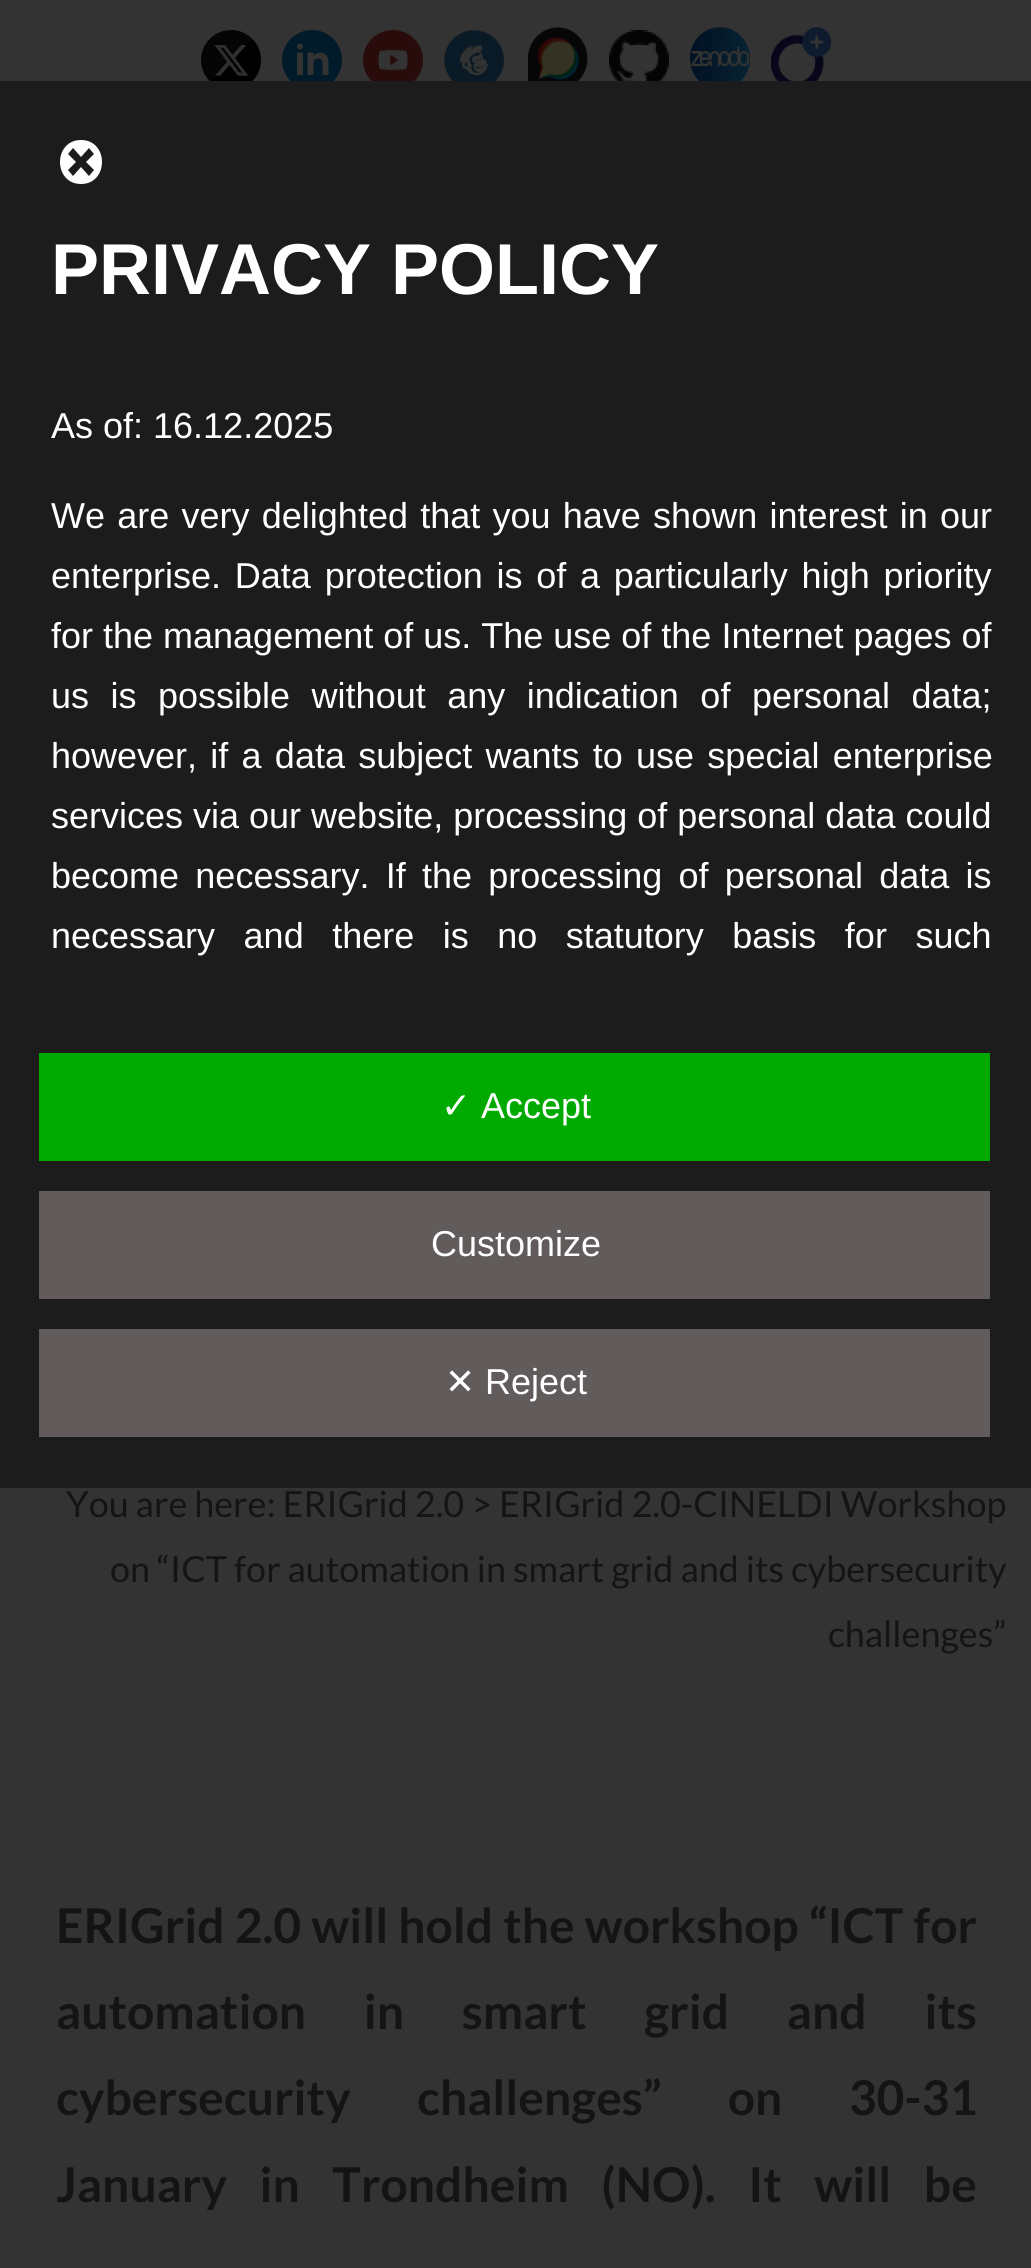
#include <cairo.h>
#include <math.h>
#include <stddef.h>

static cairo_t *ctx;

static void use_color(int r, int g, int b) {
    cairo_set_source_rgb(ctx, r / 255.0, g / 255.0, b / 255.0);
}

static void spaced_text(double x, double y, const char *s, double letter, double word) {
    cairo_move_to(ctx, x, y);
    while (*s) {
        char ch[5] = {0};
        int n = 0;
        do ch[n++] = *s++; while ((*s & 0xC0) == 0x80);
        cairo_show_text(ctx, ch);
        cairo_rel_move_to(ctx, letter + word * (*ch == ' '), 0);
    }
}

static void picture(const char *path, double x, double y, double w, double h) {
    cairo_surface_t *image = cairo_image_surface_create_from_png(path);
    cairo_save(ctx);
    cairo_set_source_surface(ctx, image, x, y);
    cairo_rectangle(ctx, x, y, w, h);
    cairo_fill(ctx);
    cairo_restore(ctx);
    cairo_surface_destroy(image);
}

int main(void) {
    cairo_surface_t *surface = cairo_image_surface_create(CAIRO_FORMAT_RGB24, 1031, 2268);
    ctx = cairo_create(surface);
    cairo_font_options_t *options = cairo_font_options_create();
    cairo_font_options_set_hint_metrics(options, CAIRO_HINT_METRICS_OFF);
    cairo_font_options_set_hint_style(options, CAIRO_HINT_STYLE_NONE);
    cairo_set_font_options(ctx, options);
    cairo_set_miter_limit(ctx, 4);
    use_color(51, 51, 51);
    cairo_paint(ctx);
    use_color(29, 28, 28);
    cairo_rectangle(ctx, 0, 81, 1031, 1407);
    cairo_fill(ctx);
    use_color(255, 255, 255);
    cairo_new_path(ctx);
    cairo_move_to(ctx, 81, 140);
    cairo_curve_to(ctx, 109, 140, 109, 184, 81, 184);
    cairo_curve_to(ctx, 53, 184, 53, 140, 81, 140);
    cairo_close_path(ctx);
    cairo_move_to(ctx, 94, 170);
    cairo_line_to(ctx, 86, 162);
    cairo_line_to(ctx, 94, 154);
    cairo_line_to(ctx, 89, 148);
    cairo_line_to(ctx, 81, 157);
    cairo_line_to(ctx, 73, 148);
    cairo_line_to(ctx, 68, 154);
    cairo_line_to(ctx, 76, 162);
    cairo_line_to(ctx, 68, 170);
    cairo_line_to(ctx, 73, 176);
    cairo_line_to(ctx, 81, 167);
    cairo_line_to(ctx, 89, 176);
    cairo_close_path(ctx);
    cairo_fill(ctx);
    cairo_select_font_face(ctx, "Liberation Sans", CAIRO_FONT_SLANT_NORMAL, CAIRO_FONT_WEIGHT_BOLD);
    cairo_set_font_size(ctx, 72);
    cairo_move_to(ctx, 51, 294);
    cairo_show_text(ctx, "PRIVACY POLICY");
    cairo_select_font_face(ctx, "Liberation Sans", CAIRO_FONT_SLANT_NORMAL, CAIRO_FONT_WEIGHT_NORMAL);
    cairo_set_font_size(ctx, 36);
    cairo_move_to(ctx, 51, 438);
    cairo_show_text(ctx, "As of: 16.12.2025");
    spaced_text(51, 528, "We are very delighted that you have shown interest in our", 0, 2.25);
    spaced_text(51, 588, "enterprise. Data protection is of a particularly high priority", 0, 3.75);
    cairo_move_to(ctx, 51, 648);
    cairo_show_text(ctx, "for the management of us. The use of the Internet pages of");
    spaced_text(51, 708, "us is possible without any indication of personal data;", 0, 11.5);
    spaced_text(51, 768, "however, if a data subject wants to use special enterprise", 0, 3.25);
    cairo_move_to(ctx, 51, 828);
    cairo_show_text(ctx, "services via our website, processing of personal data could");
    spaced_text(51, 888, "become necessary. If the processing of personal data is", 0, 6.25);
    spaced_text(51, 948, "necessary and there is no statutory basis for such", 0, 18.5);
    use_color(0, 170, 0);
    cairo_rectangle(ctx, 39, 1053, 951, 108);
    cairo_fill(ctx);
    cairo_select_font_face(ctx, "DejaVu Sans", CAIRO_FONT_SLANT_NORMAL, CAIRO_FONT_WEIGHT_NORMAL);
    use_color(255, 255, 255);
    cairo_move_to(ctx, 441, 1118);
    cairo_show_text(ctx, "✓");
    cairo_select_font_face(ctx, "Liberation Sans", CAIRO_FONT_SLANT_NORMAL, CAIRO_FONT_WEIGHT_NORMAL);
    cairo_move_to(ctx, 481, 1118);
    cairo_show_text(ctx, "Accept");
    use_color(97, 91, 91);
    cairo_rectangle(ctx, 39, 1191, 951, 108);
    cairo_fill(ctx);
    use_color(255, 255, 255);
    cairo_move_to(ctx, 431, 1256);
    cairo_show_text(ctx, "Customize");
    use_color(97, 91, 91);
    cairo_rectangle(ctx, 39, 1329, 951, 108);
    cairo_fill(ctx);
    cairo_select_font_face(ctx, "DejaVu Sans", CAIRO_FONT_SLANT_NORMAL, CAIRO_FONT_WEIGHT_NORMAL);
    use_color(255, 255, 255);
    cairo_move_to(ctx, 445, 1394);
    cairo_show_text(ctx, "✕");
    cairo_select_font_face(ctx, "Liberation Sans", CAIRO_FONT_SLANT_NORMAL, CAIRO_FONT_WEIGHT_NORMAL);
    cairo_move_to(ctx, 485, 1394);
    cairo_show_text(ctx, "Reject");
    picture("img1.png", 201, 30, 60, 51);
    picture("img2.png", 282, 30, 60, 51);
    picture("img3.png", 363, 30, 60, 51);
    picture("img4.png", 444, 30, 60, 51);
    picture("img5.png", 528, 27, 60, 54);
    picture("img6.png", 609, 30, 60, 51);
    picture("img7.png", 690, 27, 60, 54);
    picture("img8.png", 771, 27, 60, 54);
    cairo_select_font_face(ctx, "Lato", CAIRO_FONT_SLANT_NORMAL, CAIRO_FONT_WEIGHT_NORMAL);
    use_color(20, 20, 20);
    cairo_move_to(ctx, 66, 1517);
    cairo_show_text(ctx, "You are here: ERIGrid 2.0 > ERIGrid 2.0-CINELDI Workshop");
    cairo_move_to(ctx, 110, 1582);
    cairo_show_text(ctx, "on “ICT for automation in smart grid and its cybersecurity");
    cairo_move_to(ctx, 828, 1647);
    cairo_show_text(ctx, "challenges”");
    cairo_select_font_face(ctx, "Lato", CAIRO_FONT_SLANT_NORMAL, CAIRO_FONT_WEIGHT_BOLD);
    cairo_set_font_size(ctx, 48);
    spaced_text(56, 1943, "ERIGrid 2.0 will hold the workshop “ICT for", 0, 0.75);
    spaced_text(56, 2029, "automation in smart grid and its", 0, 48.5);
    spaced_text(56, 2115, "cybersecurity challenges” on 30-31", 0, 57);
    spaced_text(56, 2202, "January in Trondheim (NO). It will be", 0, 23.25);
    cairo_surface_write_to_png(surface, "result.png");
    cairo_font_options_destroy(options);
    cairo_destroy(ctx);
    cairo_surface_destroy(surface);
    return 0;
}
